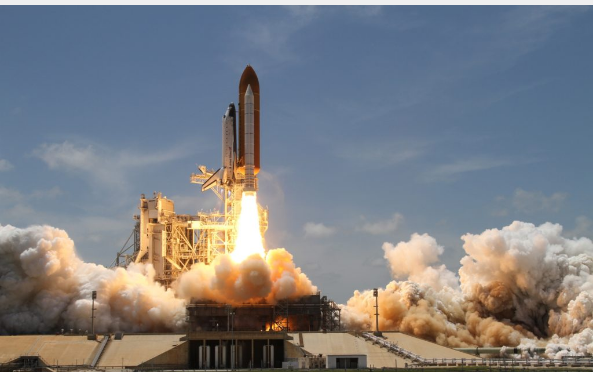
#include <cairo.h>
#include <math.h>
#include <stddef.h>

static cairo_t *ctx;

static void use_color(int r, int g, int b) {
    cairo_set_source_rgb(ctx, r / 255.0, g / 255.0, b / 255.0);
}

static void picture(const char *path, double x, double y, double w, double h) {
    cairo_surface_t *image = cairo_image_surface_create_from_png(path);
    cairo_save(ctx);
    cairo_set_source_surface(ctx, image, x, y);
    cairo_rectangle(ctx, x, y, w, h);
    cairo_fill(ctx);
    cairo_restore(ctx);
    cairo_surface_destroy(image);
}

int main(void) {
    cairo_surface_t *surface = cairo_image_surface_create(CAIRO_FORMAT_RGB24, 593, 372);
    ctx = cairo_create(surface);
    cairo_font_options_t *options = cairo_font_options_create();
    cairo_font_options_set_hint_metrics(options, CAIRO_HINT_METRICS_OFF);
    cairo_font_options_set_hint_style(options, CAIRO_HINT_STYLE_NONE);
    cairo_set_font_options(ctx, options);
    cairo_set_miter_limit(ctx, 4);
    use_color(239, 239, 239);
    cairo_paint(ctx);
    picture("img1.png", 0, 5, 593, 367);
    cairo_surface_write_to_png(surface, "result.png");
    cairo_font_options_destroy(options);
    cairo_destroy(ctx);
    cairo_surface_destroy(surface);
    return 0;
}
